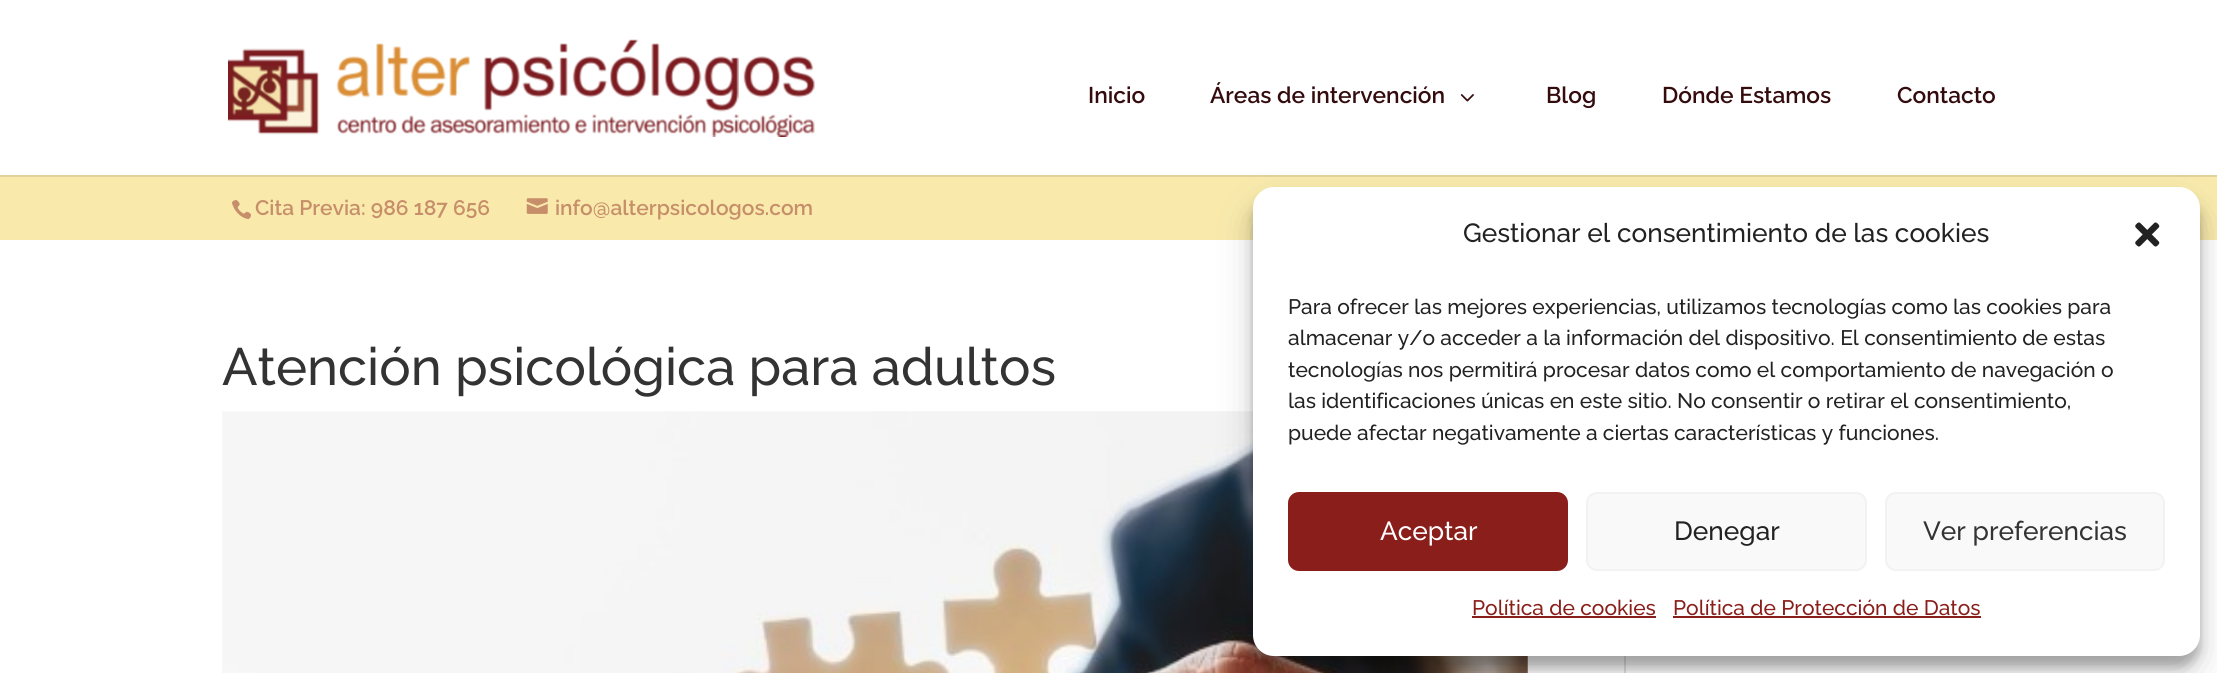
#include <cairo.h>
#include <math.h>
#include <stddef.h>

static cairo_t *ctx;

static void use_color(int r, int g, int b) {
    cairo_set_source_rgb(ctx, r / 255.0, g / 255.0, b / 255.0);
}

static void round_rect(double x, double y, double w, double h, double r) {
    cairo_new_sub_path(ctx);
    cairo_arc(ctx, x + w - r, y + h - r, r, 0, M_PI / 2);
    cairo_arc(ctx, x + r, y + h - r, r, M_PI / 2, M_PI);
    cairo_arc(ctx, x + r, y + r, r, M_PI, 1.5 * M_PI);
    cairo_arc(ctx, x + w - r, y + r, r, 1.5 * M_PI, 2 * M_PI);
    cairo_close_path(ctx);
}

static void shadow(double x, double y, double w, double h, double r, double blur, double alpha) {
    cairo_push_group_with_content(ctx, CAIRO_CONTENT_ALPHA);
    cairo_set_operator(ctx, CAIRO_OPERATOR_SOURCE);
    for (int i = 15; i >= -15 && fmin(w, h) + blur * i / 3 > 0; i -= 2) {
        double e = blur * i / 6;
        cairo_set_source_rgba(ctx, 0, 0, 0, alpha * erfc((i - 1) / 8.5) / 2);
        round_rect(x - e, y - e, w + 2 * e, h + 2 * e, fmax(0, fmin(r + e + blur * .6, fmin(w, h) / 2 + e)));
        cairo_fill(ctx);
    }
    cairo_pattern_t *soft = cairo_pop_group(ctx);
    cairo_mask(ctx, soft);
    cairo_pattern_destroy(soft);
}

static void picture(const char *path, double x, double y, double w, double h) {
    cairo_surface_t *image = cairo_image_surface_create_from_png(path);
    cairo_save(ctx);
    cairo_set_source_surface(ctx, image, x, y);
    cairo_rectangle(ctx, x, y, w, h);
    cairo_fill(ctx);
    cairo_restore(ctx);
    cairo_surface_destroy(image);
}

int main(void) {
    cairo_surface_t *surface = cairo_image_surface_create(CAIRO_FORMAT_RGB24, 2217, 673);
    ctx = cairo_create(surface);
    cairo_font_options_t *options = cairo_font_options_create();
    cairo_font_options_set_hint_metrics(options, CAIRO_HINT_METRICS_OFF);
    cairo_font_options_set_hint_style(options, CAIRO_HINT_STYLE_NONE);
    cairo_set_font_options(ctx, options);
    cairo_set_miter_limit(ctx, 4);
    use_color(255, 255, 255);
    cairo_paint(ctx);
    use_color(224, 211, 155);
    cairo_rectangle(ctx, 0, 175, 2217, 2);
    cairo_fill(ctx);
    picture("img1.png", 228, 39, 587, 98);
    cairo_select_font_face(ctx, "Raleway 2 Thin", CAIRO_FONT_SLANT_NORMAL, CAIRO_FONT_WEIGHT_NORMAL);
    cairo_set_font_size(ctx, 22.75);
    use_color(53, 12, 14);
    cairo_move_to(ctx, 1088, 103);
    cairo_show_text(ctx, "Inicio");
    cairo_move_to(ctx, 1210, 103);
    cairo_show_text(ctx, "Áreas de intervención");
    picture("img2.png", 1460, 94, 14, 8);
    cairo_move_to(ctx, 1546, 103);
    cairo_show_text(ctx, "Blog");
    cairo_move_to(ctx, 1662, 103);
    cairo_show_text(ctx, "Dónde Estamos");
    cairo_move_to(ctx, 1897, 103);
    cairo_show_text(ctx, "Contacto");
    use_color(249, 234, 172);
    cairo_rectangle(ctx, 0, 177, 2217, 63);
    cairo_fill(ctx);
    picture("img3.png", 231, 200, 20, 20);
    cairo_set_font_size(ctx, 21);
    use_color(199, 142, 106);
    cairo_move_to(ctx, 255, 215);
    cairo_show_text(ctx, "Cita Previa: 986 187 656");
    picture("img4.png", 526, 198, 22, 16);
    cairo_move_to(ctx, 555, 215);
    cairo_show_text(ctx, "info@alterpsicologos.com");
    cairo_select_font_face(ctx, "Raleway Thin", CAIRO_FONT_SLANT_NORMAL, CAIRO_FONT_WEIGHT_NORMAL);
    cairo_set_font_size(ctx, 52.5);
    use_color(51, 51, 51);
    cairo_move_to(ctx, 222, 385);
    cairo_show_text(ctx, "Atención psicológica para adultos");
    picture("img5.png", 222, 411, 1306, 262);
    use_color(226, 226, 226);
    cairo_rectangle(ctx, 1624, 656, 2, 17);
    cairo_fill(ctx);
    use_color(0, 0, 0);
    shadow(1253, 198, 947, 469, 21, 5, 0.23);
    shadow(1253, 205, 947, 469, 21, 17.5, 0.19);
    use_color(255, 255, 255);
    round_rect(1253, 187, 947, 469, 21);
    cairo_fill(ctx);
    cairo_set_font_size(ctx, 26.25);
    use_color(34, 34, 34);
    cairo_move_to(ctx, 1463, 242);
    cairo_show_text(ctx, "Gestionar el consentimiento de las cookies");
    picture("img6.png", 2135, 222, 25, 25);
    cairo_set_font_size(ctx, 21);
    cairo_move_to(ctx, 1288, 314);
    cairo_show_text(ctx, "Para ofrecer las mejores experiencias, utilizamos tecnologías como las cookies para");
    cairo_move_to(ctx, 1288, 345);
    cairo_show_text(ctx, "almacenar y/o acceder a la información del dispositivo. El consentimiento de estas");
    cairo_move_to(ctx, 1288, 377);
    cairo_show_text(ctx, "tecnologías nos permitirá procesar datos como el comportamiento de navegación o");
    cairo_move_to(ctx, 1288, 408);
    cairo_show_text(ctx, "las identificaciones únicas en este sitio. No consentir o retirar el consentimiento,");
    cairo_move_to(ctx, 1288, 440);
    cairo_show_text(ctx, "puede afectar negativamente a ciertas características y funciones.");
    use_color(138, 30, 26);
    round_rect(1289, 493, 278, 77, 10);
    cairo_fill_preserve(ctx);
    cairo_stroke(ctx);
    cairo_set_font_size(ctx, 26.25);
    use_color(255, 255, 255);
    cairo_move_to(ctx, 1380, 540);
    cairo_show_text(ctx, "Aceptar");
    use_color(249, 249, 249);
    round_rect(1587, 493, 279, 77, 10);
    cairo_fill_preserve(ctx);
    use_color(242, 242, 242);
    cairo_stroke(ctx);
    use_color(34, 34, 34);
    cairo_move_to(ctx, 1674, 540);
    cairo_show_text(ctx, "Denegar");
    use_color(249, 249, 249);
    round_rect(1886, 493, 278, 77, 10);
    cairo_fill_preserve(ctx);
    use_color(242, 242, 242);
    cairo_stroke(ctx);
    use_color(51, 51, 51);
    cairo_move_to(ctx, 1923, 540);
    cairo_show_text(ctx, "Ver preferencias");
    cairo_set_font_size(ctx, 21);
    use_color(138, 30, 26);
    cairo_move_to(ctx, 1472, 615);
    cairo_show_text(ctx, "Política de cookies");
    cairo_rectangle(ctx, 1472, 616, 184, 2);
    cairo_fill(ctx);
    cairo_move_to(ctx, 1673, 615);
    cairo_show_text(ctx, "Política de Protección de Datos");
    cairo_rectangle(ctx, 1673, 616, 308, 2);
    cairo_fill(ctx);
    cairo_surface_write_to_png(surface, "result.png");
    cairo_font_options_destroy(options);
    cairo_destroy(ctx);
    cairo_surface_destroy(surface);
    return 0;
}
